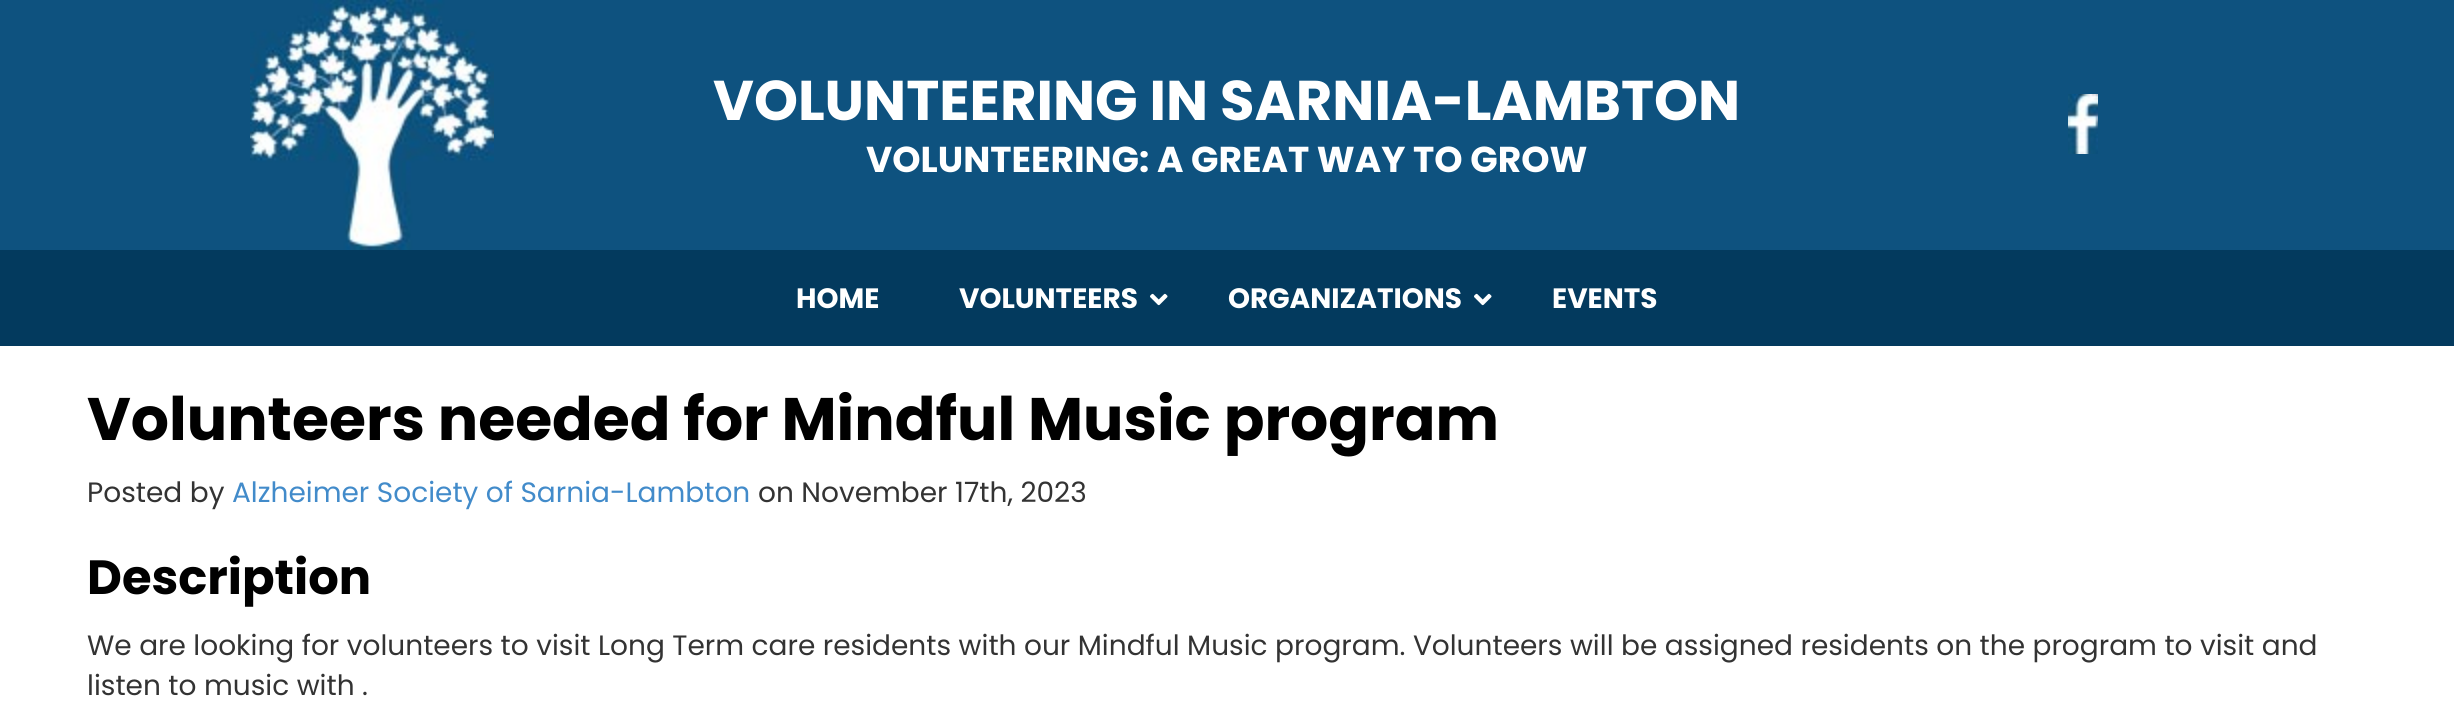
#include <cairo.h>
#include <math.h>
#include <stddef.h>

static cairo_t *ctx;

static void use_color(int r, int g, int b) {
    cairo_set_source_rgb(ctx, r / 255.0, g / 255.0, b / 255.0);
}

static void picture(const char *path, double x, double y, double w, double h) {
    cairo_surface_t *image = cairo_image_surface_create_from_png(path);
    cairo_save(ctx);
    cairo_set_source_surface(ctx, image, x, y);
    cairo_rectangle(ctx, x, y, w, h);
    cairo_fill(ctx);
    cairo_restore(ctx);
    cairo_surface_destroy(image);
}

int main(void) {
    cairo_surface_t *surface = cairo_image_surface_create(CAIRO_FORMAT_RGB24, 2454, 719);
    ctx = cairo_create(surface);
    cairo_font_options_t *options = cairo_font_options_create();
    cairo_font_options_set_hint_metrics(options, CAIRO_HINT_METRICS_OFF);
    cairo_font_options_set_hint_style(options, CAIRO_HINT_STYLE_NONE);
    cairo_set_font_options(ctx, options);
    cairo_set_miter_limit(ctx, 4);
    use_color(255, 255, 255);
    cairo_paint(ctx);
    use_color(14, 82, 127);
    cairo_rectangle(ctx, 0, 0, 2454, 250);
    cairo_fill(ctx);
    picture("img1.png", 250, 0, 244, 250);
    cairo_select_font_face(ctx, "Poppins", CAIRO_FONT_SLANT_NORMAL, CAIRO_FONT_WEIGHT_BOLD);
    cairo_set_font_size(ctx, 56);
    use_color(255, 255, 255);
    cairo_move_to(ctx, 713, 120);
    cairo_show_text(ctx, "VOLUNTEERING IN SARNIA-LAMBTON");
    cairo_set_font_size(ctx, 36);
    cairo_move_to(ctx, 866, 172);
    cairo_show_text(ctx, "VOLUNTEERING: A GREAT WAY TO GROW");
    picture("img2.png", 2068, 94, 30, 60);
    use_color(3, 58, 94);
    cairo_rectangle(ctx, 0, 250, 2454, 96);
    cairo_fill(ctx);
    cairo_set_font_size(ctx, 28);
    use_color(255, 255, 255);
    cairo_move_to(ctx, 796, 308);
    cairo_show_text(ctx, "HOME");
    cairo_move_to(ctx, 959, 308);
    cairo_show_text(ctx, "VOLUNTEERS");
    picture("img3.png", 1150, 293, 18, 13);
    cairo_move_to(ctx, 1228, 308);
    cairo_show_text(ctx, "ORGANIZATIONS");
    picture("img3.png", 1474, 293, 18, 13);
    cairo_move_to(ctx, 1552, 308);
    cairo_show_text(ctx, "EVENTS");
    cairo_set_font_size(ctx, 60);
    use_color(0, 0, 0);
    cairo_move_to(ctx, 87, 440);
    cairo_show_text(ctx, "Volunteers needed for Mindful Music program");
    cairo_select_font_face(ctx, "Poppins", CAIRO_FONT_SLANT_NORMAL, CAIRO_FONT_WEIGHT_NORMAL);
    cairo_set_font_size(ctx, 28);
    use_color(51, 51, 51);
    cairo_move_to(ctx, 87, 502);
    cairo_show_text(ctx, "Posted by");
    use_color(66, 139, 202);
    cairo_move_to(ctx, 232, 502);
    cairo_show_text(ctx, "Alzheimer Society of Sarnia-Lambton");
    use_color(51, 51, 51);
    cairo_move_to(ctx, 758, 502);
    cairo_show_text(ctx, "on November 17th, 2023");
    cairo_select_font_face(ctx, "Poppins", CAIRO_FONT_SLANT_NORMAL, CAIRO_FONT_WEIGHT_BOLD);
    cairo_set_font_size(ctx, 48);
    use_color(0, 0, 0);
    cairo_move_to(ctx, 87, 594);
    cairo_show_text(ctx, "Description");
    cairo_select_font_face(ctx, "Poppins", CAIRO_FONT_SLANT_NORMAL, CAIRO_FONT_WEIGHT_NORMAL);
    cairo_set_font_size(ctx, 28);
    use_color(51, 51, 51);
    cairo_move_to(ctx, 87, 655);
    cairo_show_text(ctx, "We are looking for volunteers to visit Long Term care residents with our Mindful Music program. Volunteers will be assigned residents on the program to visit and");
    cairo_move_to(ctx, 87, 695);
    cairo_show_text(ctx, "listen to music with .");
    cairo_surface_write_to_png(surface, "result.png");
    cairo_font_options_destroy(options);
    cairo_destroy(ctx);
    cairo_surface_destroy(surface);
    return 0;
}
